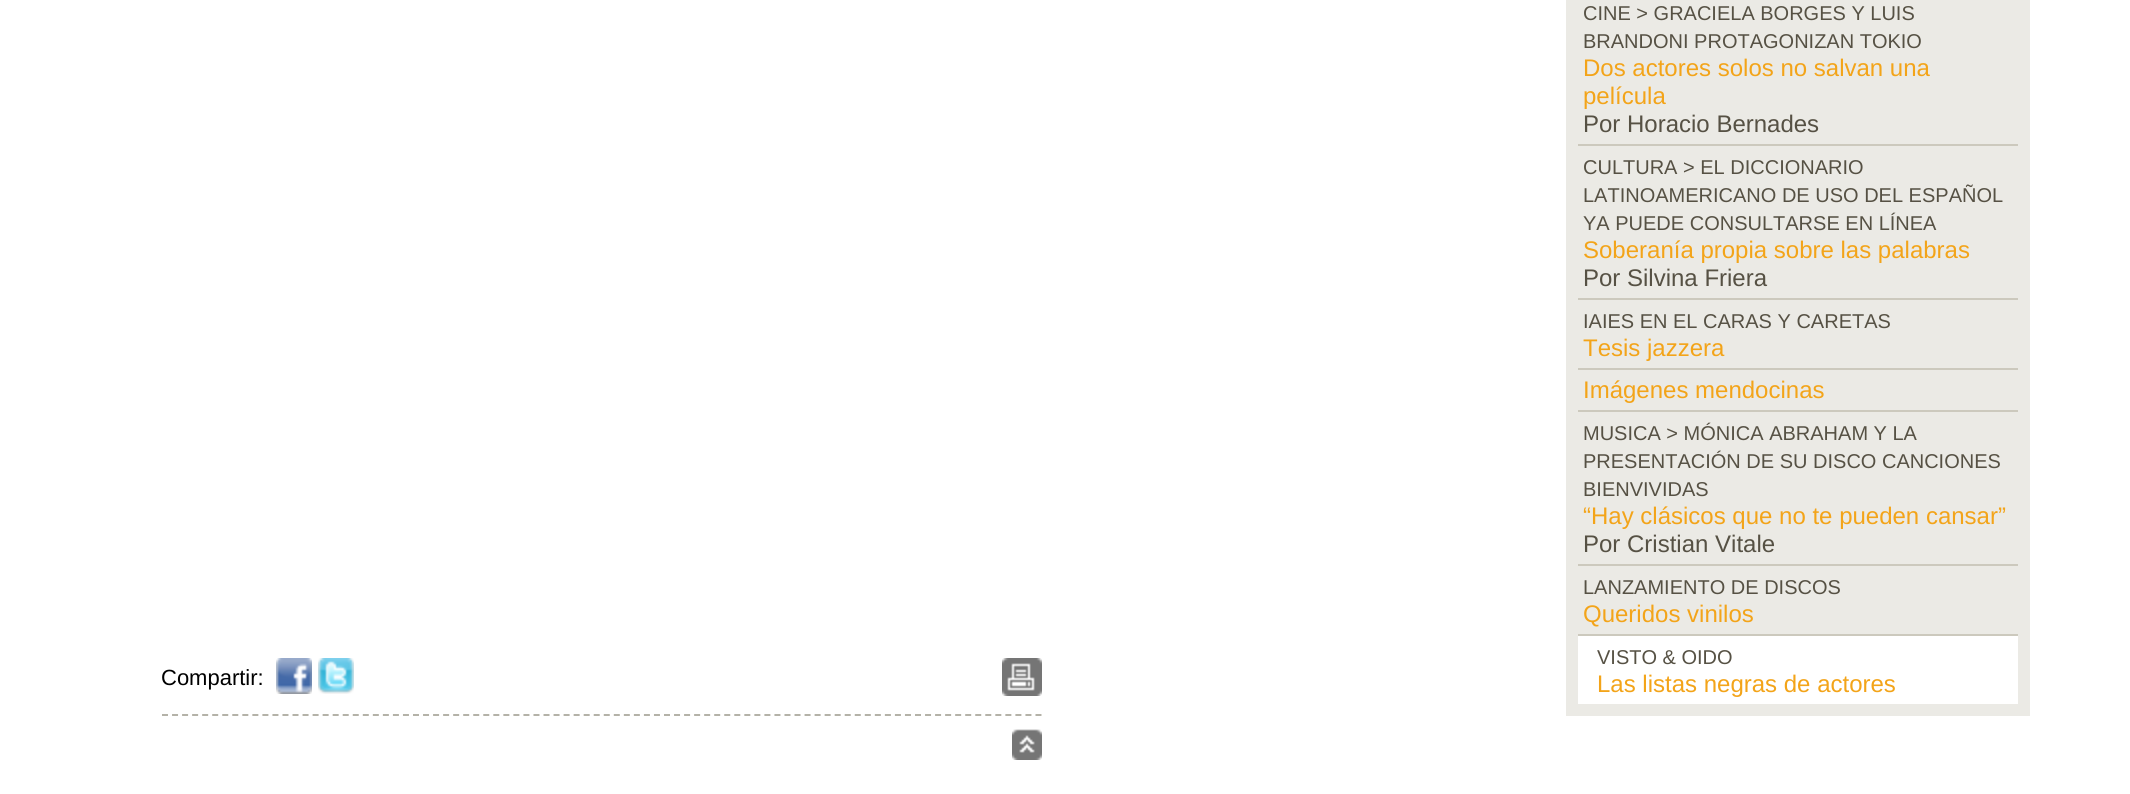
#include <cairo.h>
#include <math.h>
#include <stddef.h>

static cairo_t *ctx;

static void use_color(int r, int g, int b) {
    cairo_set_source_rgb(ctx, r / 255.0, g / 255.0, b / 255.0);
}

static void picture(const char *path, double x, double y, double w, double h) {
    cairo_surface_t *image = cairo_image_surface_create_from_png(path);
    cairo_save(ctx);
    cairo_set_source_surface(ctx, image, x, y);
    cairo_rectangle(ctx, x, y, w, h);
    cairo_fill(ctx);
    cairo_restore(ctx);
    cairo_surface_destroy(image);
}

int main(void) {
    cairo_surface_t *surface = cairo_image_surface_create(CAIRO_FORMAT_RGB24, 2130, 794);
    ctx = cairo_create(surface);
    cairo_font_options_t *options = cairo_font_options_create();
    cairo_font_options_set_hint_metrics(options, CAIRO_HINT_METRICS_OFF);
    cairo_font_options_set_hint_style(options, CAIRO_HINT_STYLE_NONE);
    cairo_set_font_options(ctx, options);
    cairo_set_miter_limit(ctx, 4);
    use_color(255, 255, 255);
    cairo_paint(ctx);
    cairo_new_path(ctx);
    cairo_move_to(ctx, 162, 715);
    cairo_line_to(ctx, 1042, 715);
    use_color(180, 178, 168);
    cairo_set_dash(ctx, (double[]){6, 4.04}, 2, 0);
    cairo_stroke(ctx);
    cairo_select_font_face(ctx, "Liberation Sans", CAIRO_FONT_SLANT_NORMAL, CAIRO_FONT_WEIGHT_NORMAL);
    cairo_set_font_size(ctx, 22);
    use_color(0, 0, 0);
    cairo_move_to(ctx, 161, 685);
    cairo_show_text(ctx, "Compartir:");
    picture("img1.png", 276, 658, 36, 36);
    picture("img2.png", 318, 658, 36, 36);
    picture("img3.png", 1002, 658, 40, 38);
    picture("img4.png", 1012, 729, 30, 31);
    use_color(235, 234, 229);
    cairo_rectangle(ctx, 1566, 0, 464, 716);
    cairo_fill(ctx);
    cairo_set_font_size(ctx, 20);
    use_color(86, 81, 68);
    cairo_move_to(ctx, 1583, 20);
    cairo_show_text(ctx, "CINE > GRACIELA BORGES Y LUIS");
    cairo_move_to(ctx, 1583, 48);
    cairo_show_text(ctx, "BRANDONI PROTAGONIZAN TOKIO");
    cairo_set_font_size(ctx, 24);
    use_color(243, 164, 25);
    cairo_move_to(ctx, 1583, 76);
    cairo_show_text(ctx, "Dos actores solos no salvan una");
    cairo_move_to(ctx, 1583, 104);
    cairo_show_text(ctx, "película");
    use_color(86, 81, 68);
    cairo_move_to(ctx, 1583, 132);
    cairo_show_text(ctx, "Por Horacio Bernades");
    use_color(204, 201, 189);
    cairo_rectangle(ctx, 1578, 144, 440, 2);
    cairo_fill(ctx);
    cairo_set_font_size(ctx, 20);
    use_color(86, 81, 68);
    cairo_move_to(ctx, 1583, 174);
    cairo_show_text(ctx, "CULTURA > EL DICCIONARIO");
    cairo_move_to(ctx, 1583, 202);
    cairo_show_text(ctx, "LATINOAMERICANO DE USO DEL ESPAÑOL");
    cairo_move_to(ctx, 1583, 230);
    cairo_show_text(ctx, "YA PUEDE CONSULTARSE EN LÍNEA");
    cairo_set_font_size(ctx, 24);
    use_color(243, 164, 25);
    cairo_move_to(ctx, 1583, 258);
    cairo_show_text(ctx, "Soberanía propia sobre las palabras");
    use_color(86, 81, 68);
    cairo_move_to(ctx, 1583, 286);
    cairo_show_text(ctx, "Por Silvina Friera");
    use_color(204, 201, 189);
    cairo_rectangle(ctx, 1578, 298, 440, 2);
    cairo_fill(ctx);
    cairo_set_font_size(ctx, 20);
    use_color(86, 81, 68);
    cairo_move_to(ctx, 1583, 328);
    cairo_show_text(ctx, "IAIES EN EL CARAS Y CARETAS");
    cairo_set_font_size(ctx, 24);
    use_color(243, 164, 25);
    cairo_move_to(ctx, 1583, 356);
    cairo_show_text(ctx, "Tesis jazzera");
    use_color(204, 201, 189);
    cairo_rectangle(ctx, 1578, 368, 440, 2);
    cairo_fill(ctx);
    use_color(243, 164, 25);
    cairo_move_to(ctx, 1583, 398);
    cairo_show_text(ctx, "Imágenes mendocinas");
    use_color(204, 201, 189);
    cairo_rectangle(ctx, 1578, 410, 440, 2);
    cairo_fill(ctx);
    cairo_set_font_size(ctx, 20);
    use_color(86, 81, 68);
    cairo_move_to(ctx, 1583, 440);
    cairo_show_text(ctx, "MUSICA > MÓNICA ABRAHAM Y LA");
    cairo_move_to(ctx, 1583, 468);
    cairo_show_text(ctx, "PRESENTACIÓN DE SU DISCO CANCIONES");
    cairo_move_to(ctx, 1583, 496);
    cairo_show_text(ctx, "BIENVIVIDAS");
    cairo_set_font_size(ctx, 24);
    use_color(243, 164, 25);
    cairo_move_to(ctx, 1583, 524);
    cairo_show_text(ctx, "“Hay clásicos que no te pueden cansar”");
    use_color(86, 81, 68);
    cairo_move_to(ctx, 1583, 552);
    cairo_show_text(ctx, "Por Cristian Vitale");
    use_color(204, 201, 189);
    cairo_rectangle(ctx, 1578, 564, 440, 2);
    cairo_fill(ctx);
    cairo_set_font_size(ctx, 20);
    use_color(86, 81, 68);
    cairo_move_to(ctx, 1583, 594);
    cairo_show_text(ctx, "LANZAMIENTO DE DISCOS");
    cairo_set_font_size(ctx, 24);
    use_color(243, 164, 25);
    cairo_move_to(ctx, 1583, 622);
    cairo_show_text(ctx, "Queridos vinilos");
    use_color(255, 255, 255);
    cairo_rectangle(ctx, 1578, 636, 440, 68);
    cairo_fill(ctx);
    use_color(204, 201, 189);
    cairo_rectangle(ctx, 1578, 634, 440, 2);
    cairo_fill(ctx);
    cairo_set_font_size(ctx, 20);
    use_color(86, 81, 68);
    cairo_move_to(ctx, 1597, 664);
    cairo_show_text(ctx, "VISTO & OIDO");
    cairo_set_font_size(ctx, 24);
    use_color(243, 164, 25);
    cairo_move_to(ctx, 1597, 692);
    cairo_show_text(ctx, "Las listas negras de actores");
    cairo_surface_write_to_png(surface, "result.png");
    cairo_font_options_destroy(options);
    cairo_destroy(ctx);
    cairo_surface_destroy(surface);
    return 0;
}
